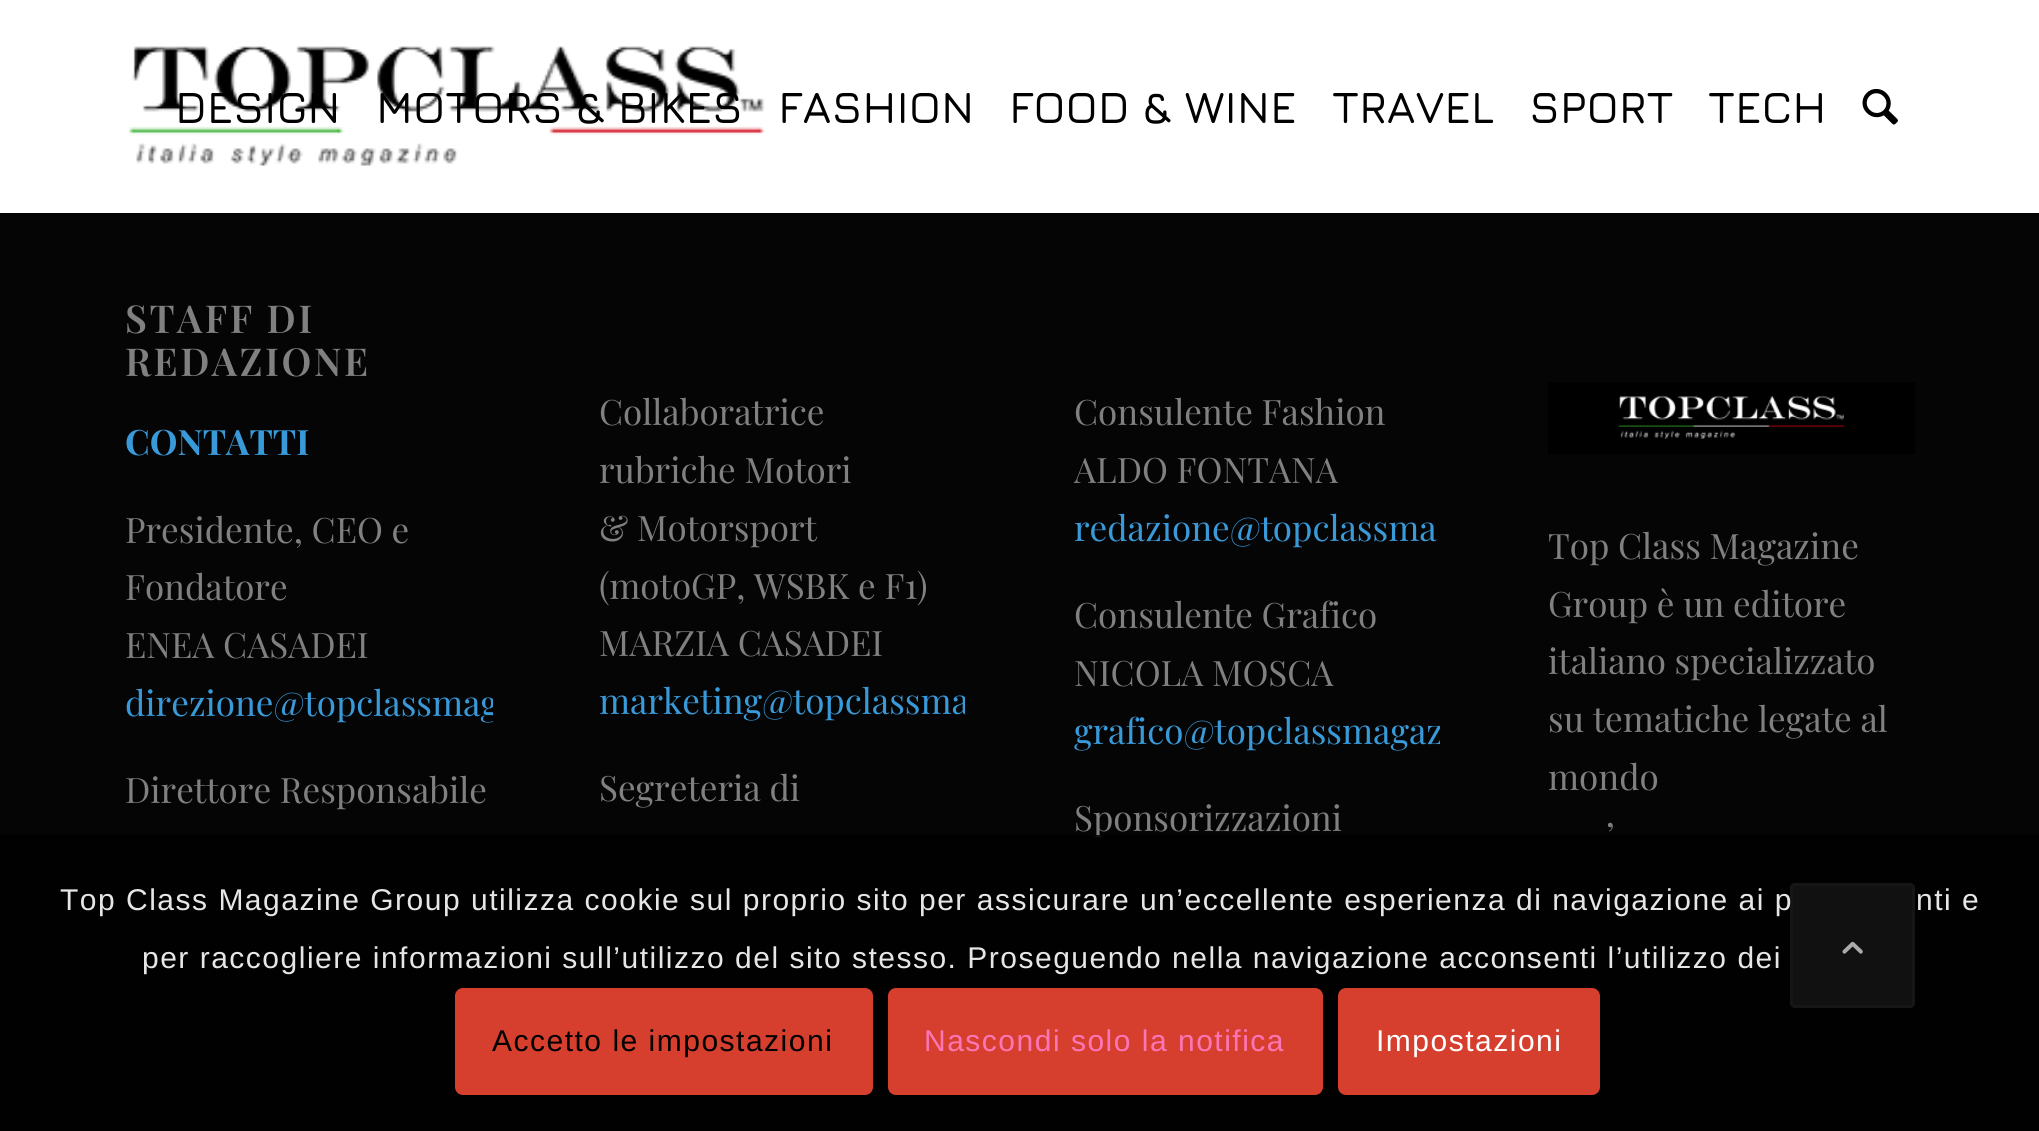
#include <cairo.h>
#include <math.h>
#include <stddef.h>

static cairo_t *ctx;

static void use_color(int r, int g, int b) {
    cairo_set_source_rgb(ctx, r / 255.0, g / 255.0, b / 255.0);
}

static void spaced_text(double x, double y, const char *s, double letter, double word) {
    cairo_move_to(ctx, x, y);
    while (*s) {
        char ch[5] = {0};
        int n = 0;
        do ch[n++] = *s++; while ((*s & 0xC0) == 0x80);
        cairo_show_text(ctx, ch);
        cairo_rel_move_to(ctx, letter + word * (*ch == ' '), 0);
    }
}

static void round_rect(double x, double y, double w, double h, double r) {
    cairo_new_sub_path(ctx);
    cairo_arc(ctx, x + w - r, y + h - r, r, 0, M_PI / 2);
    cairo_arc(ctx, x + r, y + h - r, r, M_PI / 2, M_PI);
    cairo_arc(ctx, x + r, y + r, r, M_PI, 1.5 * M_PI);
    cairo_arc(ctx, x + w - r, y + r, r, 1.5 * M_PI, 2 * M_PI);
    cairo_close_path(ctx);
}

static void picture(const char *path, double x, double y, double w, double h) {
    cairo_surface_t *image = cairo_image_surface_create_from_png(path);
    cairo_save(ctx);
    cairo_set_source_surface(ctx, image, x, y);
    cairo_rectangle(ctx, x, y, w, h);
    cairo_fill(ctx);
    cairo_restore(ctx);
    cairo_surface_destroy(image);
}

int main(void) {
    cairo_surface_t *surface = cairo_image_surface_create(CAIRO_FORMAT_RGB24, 2039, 1131);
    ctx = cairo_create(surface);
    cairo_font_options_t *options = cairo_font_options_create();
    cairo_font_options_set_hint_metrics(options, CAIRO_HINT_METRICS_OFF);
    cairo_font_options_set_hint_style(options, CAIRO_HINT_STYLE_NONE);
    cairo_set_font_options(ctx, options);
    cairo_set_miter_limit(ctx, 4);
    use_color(5, 5, 5);
    cairo_paint(ctx);
    use_color(255, 255, 255);
    cairo_rectangle(ctx, 0, 0, 2039, 213);
    cairo_fill(ctx);
    picture("img1.png", 129, 46, 636, 120);
    cairo_select_font_face(ctx, "Jura SemiBold", CAIRO_FONT_SLANT_NORMAL, CAIRO_FONT_WEIGHT_NORMAL);
    cairo_set_font_size(ctx, 45);
    use_color(0, 0, 0);
    cairo_move_to(ctx, 175, 123);
    cairo_show_text(ctx, "DESIGN");
    cairo_move_to(ctx, 376, 123);
    cairo_show_text(ctx, "MOTORS & BIKES");
    cairo_move_to(ctx, 778, 123);
    cairo_show_text(ctx, "FASHION");
    cairo_move_to(ctx, 1009, 123);
    cairo_show_text(ctx, "FOOD & WINE");
    cairo_move_to(ctx, 1332, 123);
    cairo_show_text(ctx, "TRAVEL");
    cairo_move_to(ctx, 1529, 123);
    cairo_show_text(ctx, "SPORT");
    cairo_move_to(ctx, 1708, 123);
    cairo_show_text(ctx, "TECH");
    picture("img2.png", 1862, 88, 36, 37);
    cairo_select_font_face(ctx, "Playfair Display SemiBold", CAIRO_FONT_SLANT_NORMAL, CAIRO_FONT_WEIGHT_NORMAL);
    cairo_set_font_size(ctx, 38.5);
    use_color(128, 128, 128);
    spaced_text(125, 333, "STAFF DI", 2.5, 0);
    spaced_text(125, 376, "REDAZIONE", 2.5, 0);
    cairo_select_font_face(ctx, "Playfair Display", CAIRO_FONT_SLANT_NORMAL, CAIRO_FONT_WEIGHT_BOLD);
    cairo_set_font_size(ctx, 35);
    use_color(57, 154, 218);
    cairo_move_to(ctx, 125, 455);
    cairo_show_text(ctx, "CONTATTI");
    cairo_select_font_face(ctx, "Playfair Display", CAIRO_FONT_SLANT_NORMAL, CAIRO_FONT_WEIGHT_NORMAL);
    use_color(128, 128, 128);
    cairo_move_to(ctx, 125, 543);
    cairo_show_text(ctx, "Presidente, CEO e");
    cairo_move_to(ctx, 125, 600);
    cairo_show_text(ctx, "Fondatore");
    cairo_move_to(ctx, 125, 658);
    cairo_show_text(ctx, "ENEA CASADEI");
    cairo_save(ctx);
    cairo_rectangle(ctx, 125, 265, 368, 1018);
    cairo_clip(ctx);
    use_color(57, 154, 218);
    cairo_move_to(ctx, 125, 716);
    cairo_show_text(ctx, "direzione@topclassmag");
    cairo_restore(ctx);
    cairo_move_to(ctx, 125, 803);
    cairo_show_text(ctx, "Direttore Responsabile");
    cairo_move_to(ctx, 599, 425);
    cairo_show_text(ctx, "Collaboratrice");
    cairo_move_to(ctx, 599, 483);
    cairo_show_text(ctx, "rubriche Motori");
    cairo_move_to(ctx, 599, 541);
    cairo_show_text(ctx, "& Motorsport");
    cairo_move_to(ctx, 599, 599);
    cairo_show_text(ctx, "(motoGP, WSBK e F1)");
    cairo_move_to(ctx, 599, 656);
    cairo_show_text(ctx, "MARZIA CASADEI");
    cairo_save(ctx);
    cairo_rectangle(ctx, 600, 265, 365, 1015);
    cairo_clip(ctx);
    use_color(57, 154, 218);
    cairo_move_to(ctx, 599, 714);
    cairo_show_text(ctx, "marketing@topclassma");
    cairo_restore(ctx);
    cairo_move_to(ctx, 599, 801);
    cairo_show_text(ctx, "Segreteria di");
    cairo_move_to(ctx, 1074, 425);
    cairo_show_text(ctx, "Consulente Fashion");
    cairo_move_to(ctx, 1074, 483);
    cairo_show_text(ctx, "ALDO FONTANA");
    use_color(57, 154, 218);
    cairo_move_to(ctx, 1074, 541);
    cairo_show_text(ctx, "redazione@topclassma");
    use_color(128, 128, 128);
    cairo_move_to(ctx, 1074, 628);
    cairo_show_text(ctx, "Consulente Grafico");
    cairo_move_to(ctx, 1074, 686);
    cairo_show_text(ctx, "NICOLA MOSCA");
    cairo_save(ctx);
    cairo_rectangle(ctx, 1073, 265, 367, 815);
    cairo_clip(ctx);
    use_color(57, 154, 218);
    cairo_move_to(ctx, 1074, 744);
    cairo_show_text(ctx, "grafico@topclassmagaz");
    cairo_restore(ctx);
    cairo_move_to(ctx, 1074, 831);
    cairo_show_text(ctx, "Sponsorizzazioni");
    picture("img3.png", 1548, 382, 367, 72);
    cairo_move_to(ctx, 1548, 559);
    cairo_show_text(ctx, "Top Class Magazine");
    cairo_move_to(ctx, 1548, 617);
    cairo_show_text(ctx, "Group è un editore");
    cairo_move_to(ctx, 1548, 674);
    cairo_show_text(ctx, "italiano specializzato");
    cairo_move_to(ctx, 1548, 732);
    cairo_show_text(ctx, "su tematiche legate al");
    cairo_move_to(ctx, 1548, 790);
    cairo_show_text(ctx, "mondo");
    cairo_move_to(ctx, 1606, 848);
    cairo_show_text(ctx, "’");
    cairo_set_source_rgba(ctx, 0, 0, 0, 0.85);
    cairo_rectangle(ctx, 0, 835, 2039, 296);
    cairo_fill(ctx);
    cairo_set_source_rgba(ctx, 0.094, 0.098, 0.094, 0.7);
    round_rect(1790, 883, 125, 125, 5);
    cairo_fill(ctx);
    round_rect(1791.5, 884.5, 122, 122, 3.5);
    cairo_set_source_rgba(ctx, 0.098, 0.098, 0.098, 0.7);
    cairo_set_line_width(ctx, 3);
    cairo_stroke(ctx);
    picture("img4.png", 1842, 941, 21, 13);
    cairo_select_font_face(ctx, "Liberation Sans", CAIRO_FONT_SLANT_NORMAL, CAIRO_FONT_WEIGHT_NORMAL);
    cairo_set_font_size(ctx, 30);
    use_color(230, 230, 230);
    spaced_text(60, 910, "Top Class Magazine Group utilizza cookie sul proprio sito per assicurare un’eccellente esperienza di navigazione ai p", 1.5, 0);
    spaced_text(1916, 910, "nti e", 1.5, 0);
    spaced_text(142, 968, "per raccogliere informazioni sull’utilizzo del sito stesso. Proseguendo nella navigazione acconsenti l’utilizzo dei", 1.5, 0);
    use_color(214, 62, 45);
    round_rect(457.5, 990.5, 413, 102, 5.5);
    cairo_fill_preserve(ctx);
    cairo_set_line_width(ctx, 5);
    cairo_stroke(ctx);
    use_color(0, 0, 0);
    spaced_text(492, 1051, "Accetto le impostazioni", 1.5, 0);
    use_color(214, 62, 45);
    round_rect(890.5, 990.5, 430, 102, 5.5);
    cairo_fill_preserve(ctx);
    cairo_stroke(ctx);
    use_color(255, 117, 181);
    spaced_text(924, 1051, "Nascondi solo la notifica", 1.5, 0);
    use_color(214, 62, 45);
    round_rect(1340.5, 990.5, 257, 102, 5.5);
    cairo_fill_preserve(ctx);
    cairo_stroke(ctx);
    use_color(255, 255, 255);
    spaced_text(1376, 1051, "Impostazioni", 1.5, 0);
    cairo_surface_write_to_png(surface, "result.png");
    cairo_font_options_destroy(options);
    cairo_destroy(ctx);
    cairo_surface_destroy(surface);
    return 0;
}
